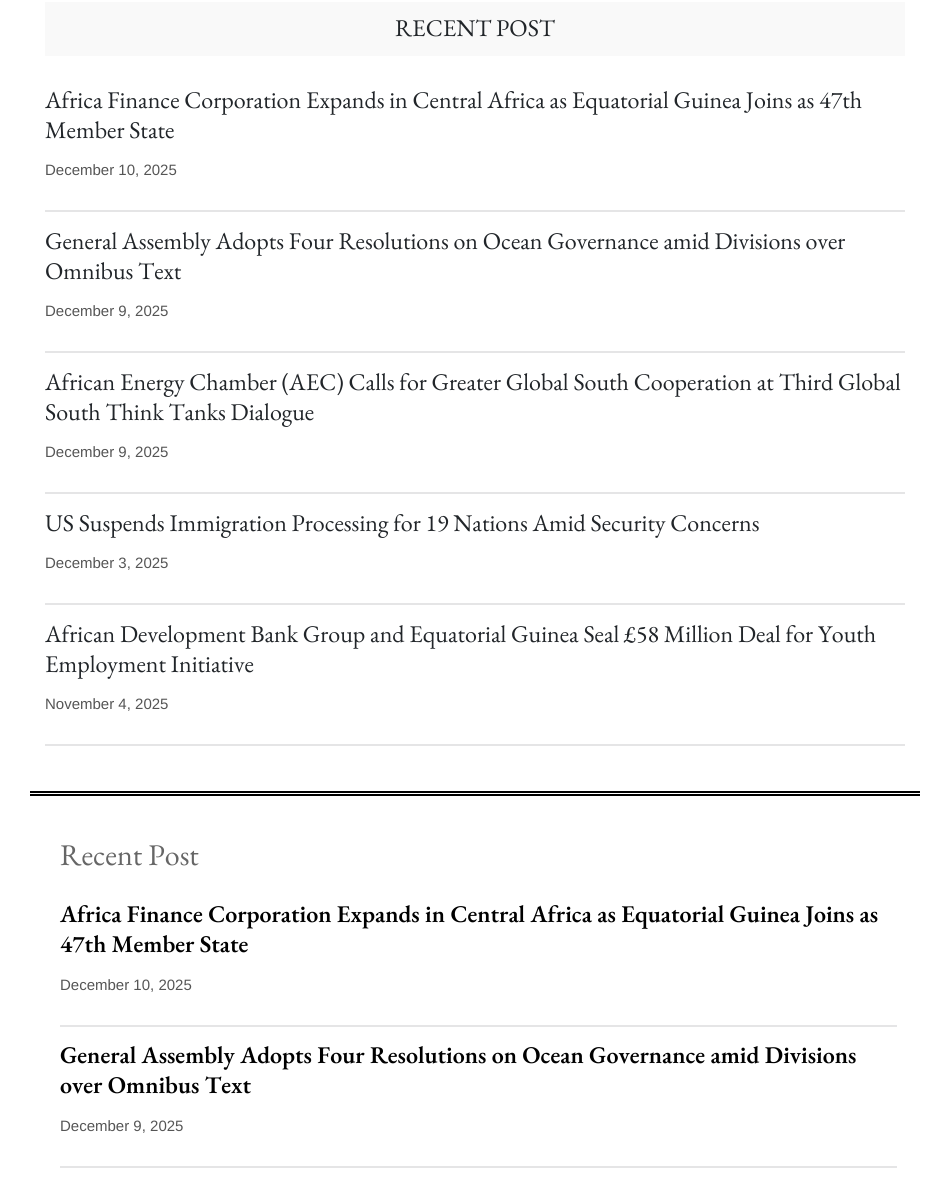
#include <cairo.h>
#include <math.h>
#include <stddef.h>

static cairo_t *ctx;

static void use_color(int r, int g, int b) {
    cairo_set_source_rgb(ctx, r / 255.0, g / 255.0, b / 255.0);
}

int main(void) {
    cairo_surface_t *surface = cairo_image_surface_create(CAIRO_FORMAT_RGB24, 949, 1187);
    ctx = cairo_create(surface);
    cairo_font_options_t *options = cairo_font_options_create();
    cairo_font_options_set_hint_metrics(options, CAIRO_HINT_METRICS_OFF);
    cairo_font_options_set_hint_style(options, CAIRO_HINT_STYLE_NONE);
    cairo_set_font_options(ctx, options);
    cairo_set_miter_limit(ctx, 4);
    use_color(255, 255, 255);
    cairo_paint(ctx);
    use_color(249, 249, 249);
    cairo_rectangle(ctx, 45, 2, 860, 54);
    cairo_fill(ctx);
    cairo_select_font_face(ctx, "EB Garamond", CAIRO_FONT_SLANT_NORMAL, CAIRO_FONT_WEIGHT_NORMAL);
    cairo_set_font_size(ctx, 24);
    use_color(33, 37, 41);
    cairo_move_to(ctx, 395, 36);
    cairo_show_text(ctx, "RECENT POST");
    use_color(229, 229, 230);
    cairo_rectangle(ctx, 45, 210, 860, 2);
    cairo_fill(ctx);
    use_color(33, 37, 41);
    cairo_move_to(ctx, 45, 108);
    cairo_show_text(ctx, "Africa Finance Corporation Expands in Central Africa as Equatorial Guinea Joins as 47th");
    cairo_move_to(ctx, 45, 138);
    cairo_show_text(ctx, "Member State");
    cairo_select_font_face(ctx, "Liberation Sans", CAIRO_FONT_SLANT_NORMAL, CAIRO_FONT_WEIGHT_NORMAL);
    cairo_set_font_size(ctx, 15);
    use_color(85, 85, 85);
    cairo_move_to(ctx, 45, 175);
    cairo_show_text(ctx, "December 10, 2025");
    use_color(229, 229, 230);
    cairo_rectangle(ctx, 45, 351, 860, 2);
    cairo_fill(ctx);
    cairo_select_font_face(ctx, "EB Garamond", CAIRO_FONT_SLANT_NORMAL, CAIRO_FONT_WEIGHT_NORMAL);
    cairo_set_font_size(ctx, 24);
    use_color(33, 37, 41);
    cairo_move_to(ctx, 45, 249);
    cairo_show_text(ctx, "General Assembly Adopts Four Resolutions on Ocean Governance amid Divisions over");
    cairo_move_to(ctx, 45, 279);
    cairo_show_text(ctx, "Omnibus Text");
    cairo_select_font_face(ctx, "Liberation Sans", CAIRO_FONT_SLANT_NORMAL, CAIRO_FONT_WEIGHT_NORMAL);
    cairo_set_font_size(ctx, 15);
    use_color(85, 85, 85);
    cairo_move_to(ctx, 45, 316);
    cairo_show_text(ctx, "December 9, 2025");
    use_color(229, 229, 230);
    cairo_rectangle(ctx, 45, 492, 860, 2);
    cairo_fill(ctx);
    cairo_select_font_face(ctx, "EB Garamond", CAIRO_FONT_SLANT_NORMAL, CAIRO_FONT_WEIGHT_NORMAL);
    cairo_set_font_size(ctx, 24);
    use_color(33, 37, 41);
    cairo_move_to(ctx, 45, 390);
    cairo_show_text(ctx, "African Energy Chamber (AEC) Calls for Greater Global South Cooperation at Third Global");
    cairo_move_to(ctx, 45, 420);
    cairo_show_text(ctx, "South Think Tanks Dialogue");
    cairo_select_font_face(ctx, "Liberation Sans", CAIRO_FONT_SLANT_NORMAL, CAIRO_FONT_WEIGHT_NORMAL);
    cairo_set_font_size(ctx, 15);
    use_color(85, 85, 85);
    cairo_move_to(ctx, 45, 457);
    cairo_show_text(ctx, "December 9, 2025");
    use_color(229, 229, 230);
    cairo_rectangle(ctx, 45, 603, 860, 2);
    cairo_fill(ctx);
    cairo_select_font_face(ctx, "EB Garamond", CAIRO_FONT_SLANT_NORMAL, CAIRO_FONT_WEIGHT_NORMAL);
    cairo_set_font_size(ctx, 24);
    use_color(33, 37, 41);
    cairo_move_to(ctx, 45, 531);
    cairo_show_text(ctx, "US Suspends Immigration Processing for 19 Nations Amid Security Concerns");
    cairo_select_font_face(ctx, "Liberation Sans", CAIRO_FONT_SLANT_NORMAL, CAIRO_FONT_WEIGHT_NORMAL);
    cairo_set_font_size(ctx, 15);
    use_color(85, 85, 85);
    cairo_move_to(ctx, 45, 568);
    cairo_show_text(ctx, "December 3, 2025");
    use_color(229, 229, 230);
    cairo_rectangle(ctx, 45, 744, 860, 2);
    cairo_fill(ctx);
    cairo_select_font_face(ctx, "EB Garamond", CAIRO_FONT_SLANT_NORMAL, CAIRO_FONT_WEIGHT_NORMAL);
    cairo_set_font_size(ctx, 24);
    use_color(33, 37, 41);
    cairo_move_to(ctx, 45, 642);
    cairo_show_text(ctx, "African Development Bank Group and Equatorial Guinea Seal £58 Million Deal for Youth");
    cairo_move_to(ctx, 45, 672);
    cairo_show_text(ctx, "Employment Initiative");
    cairo_select_font_face(ctx, "Liberation Sans", CAIRO_FONT_SLANT_NORMAL, CAIRO_FONT_WEIGHT_NORMAL);
    cairo_set_font_size(ctx, 15);
    use_color(85, 85, 85);
    cairo_move_to(ctx, 45, 709);
    cairo_show_text(ctx, "November 4, 2025");
    use_color(0, 0, 0);
    cairo_rectangle(ctx, 30, 791, 890, 2);
    cairo_fill(ctx);
    cairo_rectangle(ctx, 30, 794, 890, 2);
    cairo_fill(ctx);
    cairo_select_font_face(ctx, "EB Garamond", CAIRO_FONT_SLANT_NORMAL, CAIRO_FONT_WEIGHT_NORMAL);
    cairo_set_font_size(ctx, 30);
    use_color(102, 102, 102);
    cairo_move_to(ctx, 60, 865);
    cairo_show_text(ctx, "Recent Post");
    use_color(229, 229, 230);
    cairo_rectangle(ctx, 60, 1025, 837, 2);
    cairo_fill(ctx);
    cairo_select_font_face(ctx, "EB Garamond SemiBold", CAIRO_FONT_SLANT_NORMAL, CAIRO_FONT_WEIGHT_NORMAL);
    cairo_set_font_size(ctx, 24);
    use_color(0, 0, 0);
    cairo_move_to(ctx, 60, 922);
    cairo_show_text(ctx, "Africa Finance Corporation Expands in Central Africa as Equatorial Guinea Joins as");
    cairo_move_to(ctx, 60, 952);
    cairo_show_text(ctx, "47th Member State");
    cairo_select_font_face(ctx, "Liberation Sans", CAIRO_FONT_SLANT_NORMAL, CAIRO_FONT_WEIGHT_NORMAL);
    cairo_set_font_size(ctx, 15);
    use_color(85, 85, 85);
    cairo_move_to(ctx, 60, 990);
    cairo_show_text(ctx, "December 10, 2025");
    use_color(229, 229, 230);
    cairo_rectangle(ctx, 60, 1166, 837, 2);
    cairo_fill(ctx);
    cairo_select_font_face(ctx, "EB Garamond SemiBold", CAIRO_FONT_SLANT_NORMAL, CAIRO_FONT_WEIGHT_NORMAL);
    cairo_set_font_size(ctx, 24);
    use_color(0, 0, 0);
    cairo_move_to(ctx, 60, 1063);
    cairo_show_text(ctx, "General Assembly Adopts Four Resolutions on Ocean Governance amid Divisions");
    cairo_move_to(ctx, 60, 1093);
    cairo_show_text(ctx, "over Omnibus Text");
    cairo_select_font_face(ctx, "Liberation Sans", CAIRO_FONT_SLANT_NORMAL, CAIRO_FONT_WEIGHT_NORMAL);
    cairo_set_font_size(ctx, 15);
    use_color(85, 85, 85);
    cairo_move_to(ctx, 60, 1131);
    cairo_show_text(ctx, "December 9, 2025");
    cairo_surface_write_to_png(surface, "result.png");
    cairo_font_options_destroy(options);
    cairo_destroy(ctx);
    cairo_surface_destroy(surface);
    return 0;
}
